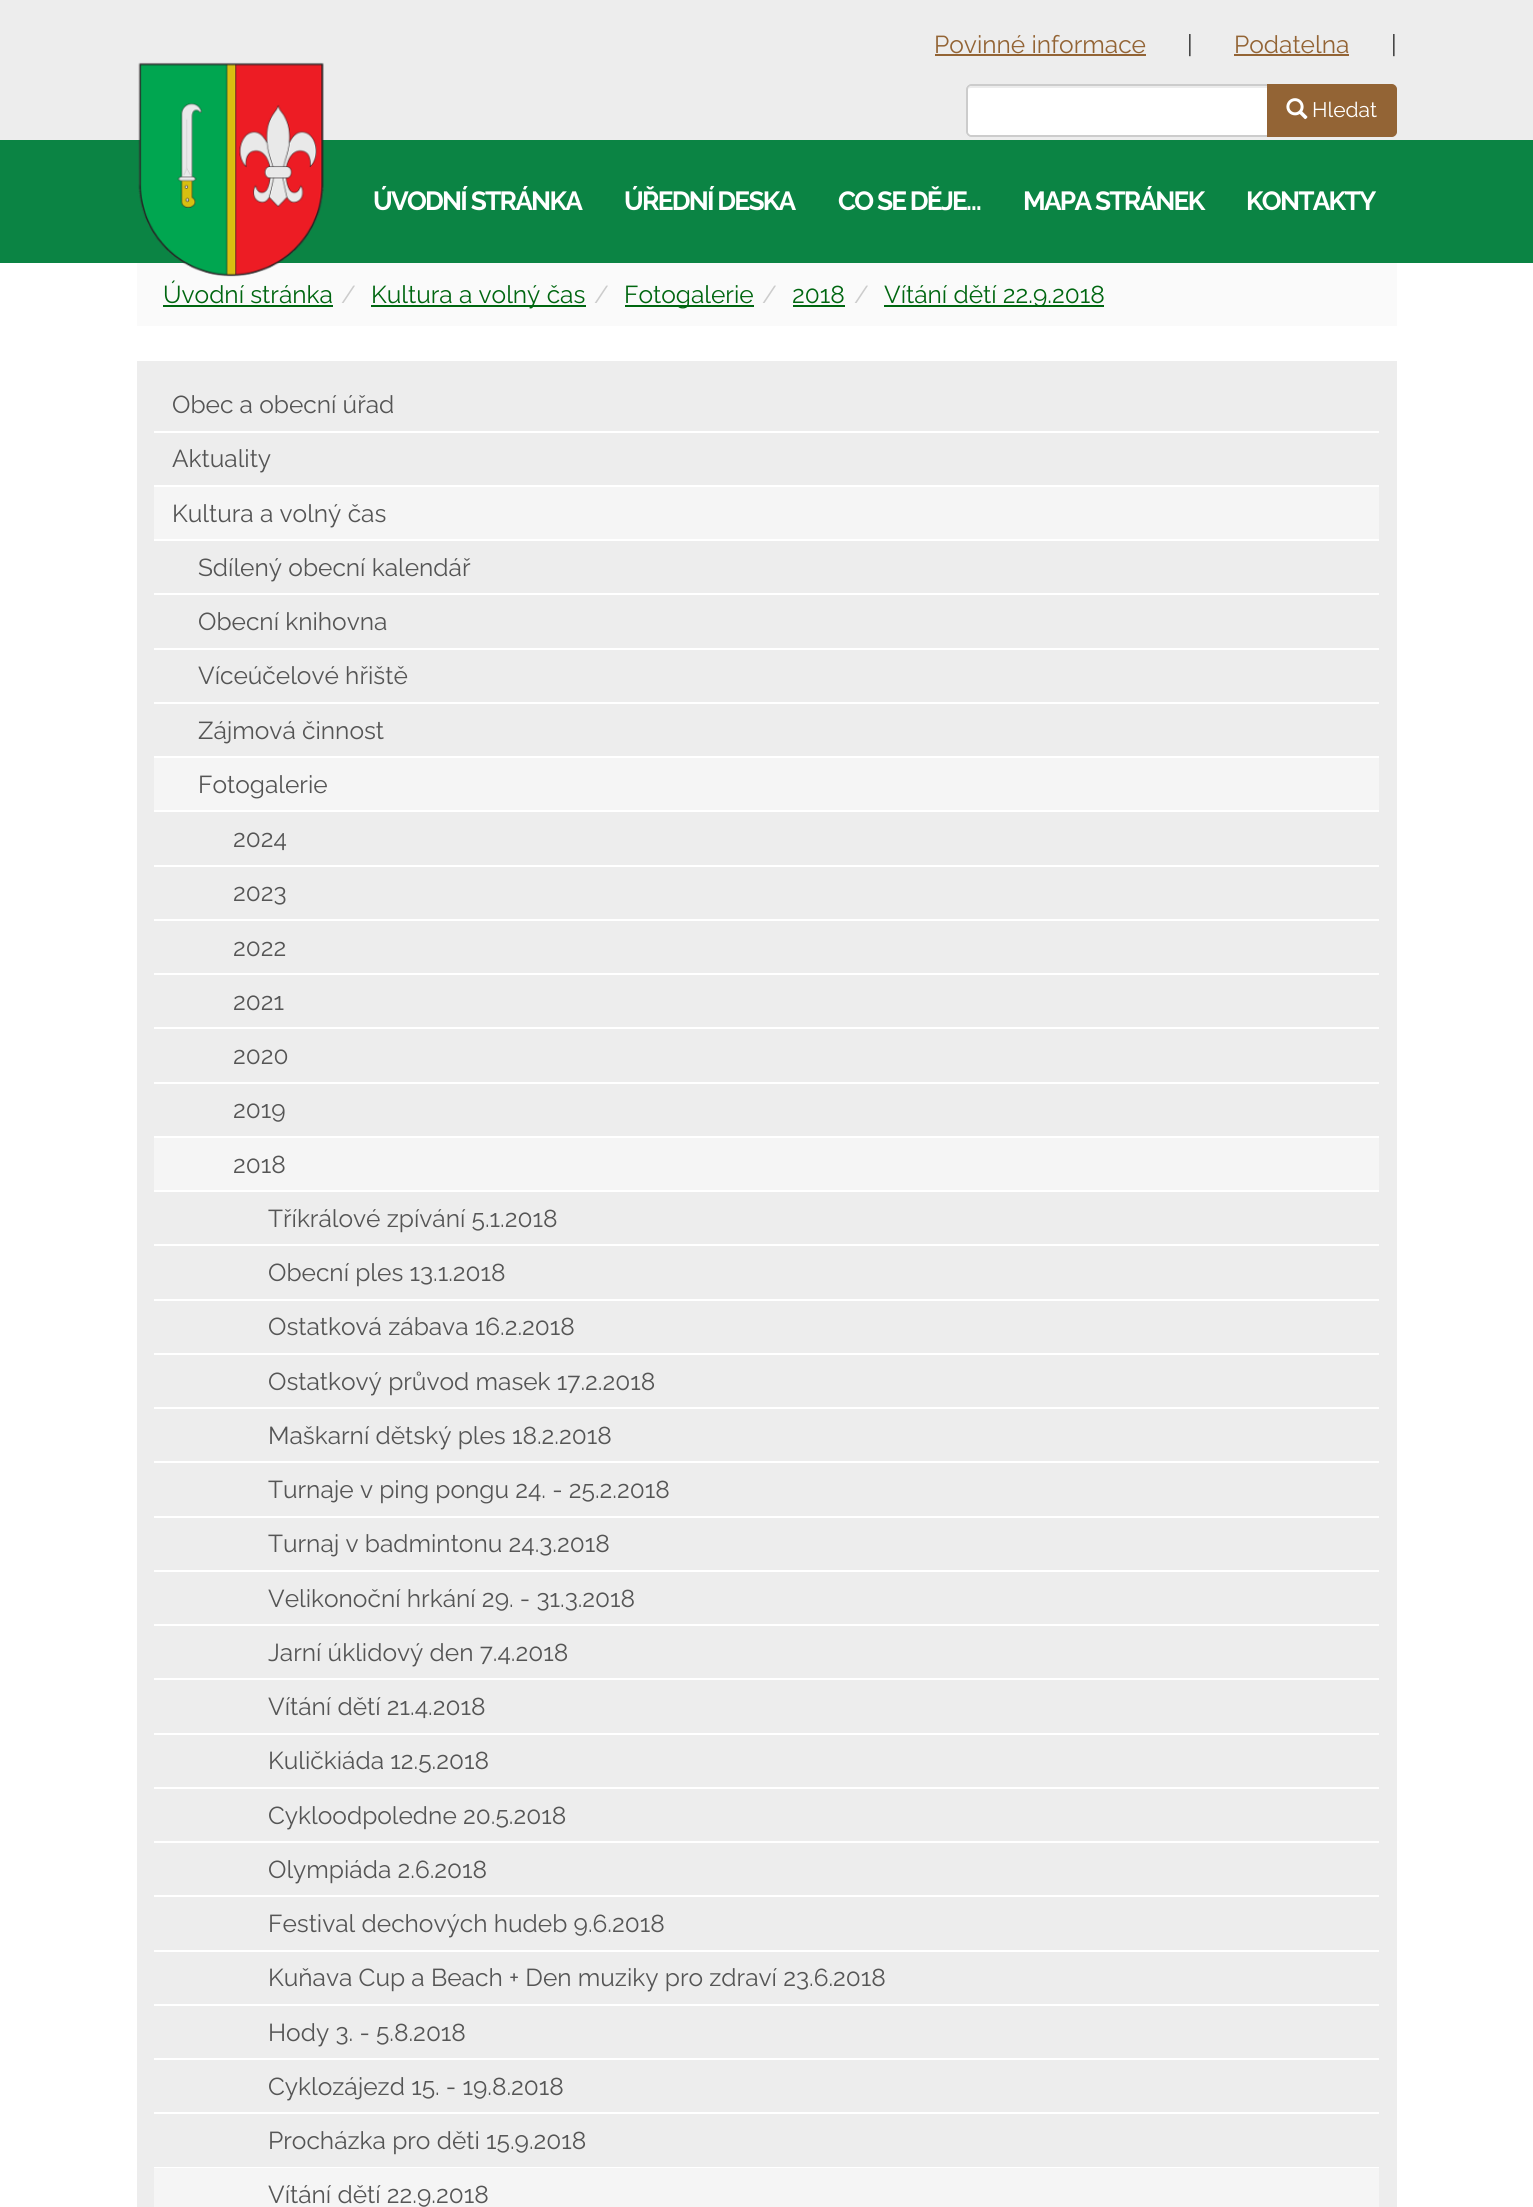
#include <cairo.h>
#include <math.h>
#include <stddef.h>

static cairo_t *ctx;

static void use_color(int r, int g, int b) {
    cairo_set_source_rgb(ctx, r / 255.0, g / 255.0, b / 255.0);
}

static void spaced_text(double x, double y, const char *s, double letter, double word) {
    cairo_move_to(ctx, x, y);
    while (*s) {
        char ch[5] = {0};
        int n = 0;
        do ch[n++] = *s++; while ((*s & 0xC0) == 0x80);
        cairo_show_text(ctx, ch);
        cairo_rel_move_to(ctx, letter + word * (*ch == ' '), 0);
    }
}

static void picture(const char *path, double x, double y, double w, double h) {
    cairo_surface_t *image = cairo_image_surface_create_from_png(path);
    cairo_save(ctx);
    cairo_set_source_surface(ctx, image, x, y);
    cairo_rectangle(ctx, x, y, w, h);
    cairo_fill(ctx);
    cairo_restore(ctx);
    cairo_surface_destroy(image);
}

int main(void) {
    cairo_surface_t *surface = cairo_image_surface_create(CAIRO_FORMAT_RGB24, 1533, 2207);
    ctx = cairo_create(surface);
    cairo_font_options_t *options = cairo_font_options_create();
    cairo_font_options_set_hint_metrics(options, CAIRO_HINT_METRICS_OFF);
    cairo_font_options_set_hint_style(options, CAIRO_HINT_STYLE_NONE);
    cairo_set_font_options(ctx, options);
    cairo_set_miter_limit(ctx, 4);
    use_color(255, 255, 255);
    cairo_paint(ctx);
    use_color(237, 237, 237);
    cairo_rectangle(ctx, 0, 0, 1533, 140);
    cairo_fill(ctx);
    cairo_select_font_face(ctx, "Raleway", CAIRO_FONT_SLANT_NORMAL, CAIRO_FONT_WEIGHT_NORMAL);
    cairo_set_font_size(ctx, 24.5);
    use_color(147, 100, 53);
    cairo_move_to(ctx, 934, 53);
    cairo_show_text(ctx, "Povinné informace");
    cairo_rectangle(ctx, 935, 54, 211, 2);
    cairo_fill(ctx);
    use_color(51, 51, 51);
    cairo_move_to(ctx, 1187, 53);
    cairo_show_text(ctx, "|");
    use_color(147, 100, 53);
    cairo_move_to(ctx, 1234, 53);
    cairo_show_text(ctx, "Podatelna");
    cairo_rectangle(ctx, 1234, 54, 115, 2);
    cairo_fill(ctx);
    use_color(51, 51, 51);
    cairo_move_to(ctx, 1391, 53);
    cairo_show_text(ctx, "|");
    use_color(255, 255, 255);
    cairo_new_path(ctx);
    cairo_move_to(ctx, 971, 84);
    cairo_line_to(ctx, 1269, 84);
    cairo_line_to(ctx, 1269, 137);
    cairo_line_to(ctx, 971, 137);
    cairo_curve_to(ctx, 968, 137, 966, 135, 966, 132);
    cairo_line_to(ctx, 966, 89);
    cairo_curve_to(ctx, 966, 86, 968, 84, 971, 84);
    cairo_close_path(ctx);
    cairo_fill(ctx);
    use_color(236, 236, 236);
    cairo_new_path(ctx);
    cairo_move_to(ctx, 971, 88);
    cairo_line_to(ctx, 1267, 88);
    cairo_line_to(ctx, 1267, 86);
    cairo_line_to(ctx, 972, 86);
    cairo_curve_to(ctx, 969, 86, 968, 88, 968, 91);
    cairo_curve_to(ctx, 968, 89, 969, 88, 971, 88);
    cairo_close_path(ctx);
    cairo_fill(ctx);
    cairo_new_path(ctx);
    cairo_move_to(ctx, 971, 85);
    cairo_line_to(ctx, 1268, 85);
    cairo_line_to(ctx, 1268, 136);
    cairo_line_to(ctx, 971, 136);
    cairo_curve_to(ctx, 969, 136, 967, 134, 967, 132);
    cairo_line_to(ctx, 967, 89);
    cairo_curve_to(ctx, 967, 87, 969, 85, 971, 85);
    cairo_close_path(ctx);
    use_color(204, 204, 204);
    cairo_stroke(ctx);
    use_color(147, 100, 53);
    cairo_new_path(ctx);
    cairo_move_to(ctx, 1268, 85);
    cairo_line_to(ctx, 1392, 85);
    cairo_curve_to(ctx, 1394, 85, 1396, 87, 1396, 89);
    cairo_line_to(ctx, 1396, 132);
    cairo_curve_to(ctx, 1396, 134, 1394, 136, 1392, 136);
    cairo_line_to(ctx, 1268, 136);
    cairo_close_path(ctx);
    cairo_fill_preserve(ctx);
    cairo_stroke(ctx);
    picture("img1.png", 1286, 98, 22, 22);
    cairo_set_font_size(ctx, 21);
    use_color(255, 255, 255);
    cairo_move_to(ctx, 1312, 117);
    cairo_show_text(ctx, "Hledat");
    use_color(11, 132, 68);
    cairo_rectangle(ctx, 0, 140, 1533, 123);
    cairo_fill(ctx);
    use_color(250, 250, 250);
    cairo_rectangle(ctx, 137, 263, 1260, 63);
    cairo_fill(ctx);
    picture("img2.png", 138, 62, 186, 215);
    cairo_select_font_face(ctx, "Raleway", CAIRO_FONT_SLANT_NORMAL, CAIRO_FONT_WEIGHT_BOLD);
    cairo_set_font_size(ctx, 26.25);
    use_color(255, 255, 255);
    spaced_text(373, 210, "ÚVODNÍ STRÁNKA", -1.75, 0);
    spaced_text(624, 210, "ÚŘEDNÍ DESKA", -1.75, 0);
    spaced_text(838, 210, "CO SE DĚJE…", -1.75, 0);
    spaced_text(1023, 210, "MAPA STRÁNEK", -1.75, 0);
    spaced_text(1246, 210, "KONTAKTY", -1.75, 0);
    cairo_select_font_face(ctx, "Raleway", CAIRO_FONT_SLANT_NORMAL, CAIRO_FONT_WEIGHT_NORMAL);
    cairo_set_font_size(ctx, 24.5);
    use_color(0, 102, 16);
    cairo_move_to(ctx, 163, 303);
    cairo_show_text(ctx, "Úvodní stránka");
    cairo_rectangle(ctx, 163, 305, 170, 2);
    cairo_fill(ctx);
    use_color(204, 204, 204);
    cairo_move_to(ctx, 341, 303);
    cairo_show_text(ctx, "/");
    use_color(0, 102, 16);
    cairo_rectangle(ctx, 371, 305, 215, 2);
    cairo_fill(ctx);
    cairo_move_to(ctx, 371, 303);
    cairo_show_text(ctx, "Kultura a volný čas");
    use_color(204, 204, 204);
    cairo_move_to(ctx, 594, 303);
    cairo_show_text(ctx, "/");
    use_color(0, 102, 16);
    cairo_rectangle(ctx, 625, 305, 129, 2);
    cairo_fill(ctx);
    cairo_move_to(ctx, 624, 303);
    cairo_show_text(ctx, "Fotogalerie");
    use_color(204, 204, 204);
    cairo_move_to(ctx, 762, 303);
    cairo_show_text(ctx, "/");
    use_color(0, 102, 16);
    cairo_move_to(ctx, 792, 303);
    cairo_show_text(ctx, "2018");
    cairo_rectangle(ctx, 793, 305, 52, 2);
    cairo_fill(ctx);
    use_color(204, 204, 204);
    cairo_move_to(ctx, 854, 303);
    cairo_show_text(ctx, "/");
    use_color(0, 102, 16);
    cairo_rectangle(ctx, 884, 305, 220, 2);
    cairo_fill(ctx);
    cairo_move_to(ctx, 884, 303);
    cairo_show_text(ctx, "Vítání dětí 22.9.2018");
    use_color(237, 237, 237);
    cairo_rectangle(ctx, 137, 361, 1260, 1846);
    cairo_fill(ctx);
    use_color(255, 255, 255);
    cairo_rectangle(ctx, 154, 431, 1225, 2);
    cairo_fill(ctx);
    use_color(85, 85, 85);
    cairo_move_to(ctx, 172, 413);
    cairo_show_text(ctx, "Obec a obecní úřad");
    use_color(255, 255, 255);
    cairo_rectangle(ctx, 154, 485, 1225, 2);
    cairo_fill(ctx);
    use_color(85, 85, 85);
    cairo_move_to(ctx, 172, 467);
    cairo_show_text(ctx, "Aktuality");
    use_color(245, 245, 245);
    cairo_rectangle(ctx, 154, 487, 1225, 52);
    cairo_fill(ctx);
    use_color(255, 255, 255);
    cairo_rectangle(ctx, 154, 539, 1225, 2);
    cairo_fill(ctx);
    use_color(85, 85, 85);
    cairo_move_to(ctx, 172, 522);
    cairo_show_text(ctx, "Kultura a volný čas");
    use_color(255, 255, 255);
    cairo_rectangle(ctx, 154, 593, 1225, 2);
    cairo_fill(ctx);
    use_color(85, 85, 85);
    cairo_move_to(ctx, 198, 576);
    cairo_show_text(ctx, "Sdílený obecní kalendář");
    use_color(255, 255, 255);
    cairo_rectangle(ctx, 154, 648, 1225, 2);
    cairo_fill(ctx);
    use_color(85, 85, 85);
    cairo_move_to(ctx, 198, 630);
    cairo_show_text(ctx, "Obecní knihovna");
    use_color(255, 255, 255);
    cairo_rectangle(ctx, 154, 702, 1225, 2);
    cairo_fill(ctx);
    use_color(85, 85, 85);
    cairo_move_to(ctx, 198, 684);
    cairo_show_text(ctx, "Víceúčelové hřiště");
    use_color(255, 255, 255);
    cairo_rectangle(ctx, 154, 756, 1225, 2);
    cairo_fill(ctx);
    use_color(85, 85, 85);
    cairo_move_to(ctx, 198, 739);
    cairo_show_text(ctx, "Zájmová činnost");
    use_color(245, 245, 245);
    cairo_rectangle(ctx, 154, 758, 1225, 52);
    cairo_fill(ctx);
    use_color(255, 255, 255);
    cairo_rectangle(ctx, 154, 810, 1225, 2);
    cairo_fill(ctx);
    use_color(85, 85, 85);
    cairo_move_to(ctx, 198, 793);
    cairo_show_text(ctx, "Fotogalerie");
    use_color(255, 255, 255);
    cairo_rectangle(ctx, 154, 865, 1225, 2);
    cairo_fill(ctx);
    use_color(85, 85, 85);
    cairo_move_to(ctx, 233, 847);
    cairo_show_text(ctx, "2024");
    use_color(255, 255, 255);
    cairo_rectangle(ctx, 154, 919, 1225, 2);
    cairo_fill(ctx);
    use_color(85, 85, 85);
    cairo_move_to(ctx, 233, 901);
    cairo_show_text(ctx, "2023");
    use_color(255, 255, 255);
    cairo_rectangle(ctx, 154, 973, 1225, 2);
    cairo_fill(ctx);
    use_color(85, 85, 85);
    cairo_move_to(ctx, 233, 956);
    cairo_show_text(ctx, "2022");
    use_color(255, 255, 255);
    cairo_rectangle(ctx, 154, 1027, 1225, 2);
    cairo_fill(ctx);
    use_color(85, 85, 85);
    cairo_move_to(ctx, 233, 1010);
    cairo_show_text(ctx, "2021");
    use_color(255, 255, 255);
    cairo_rectangle(ctx, 154, 1082, 1225, 2);
    cairo_fill(ctx);
    use_color(85, 85, 85);
    cairo_move_to(ctx, 233, 1064);
    cairo_show_text(ctx, "2020");
    use_color(255, 255, 255);
    cairo_rectangle(ctx, 154, 1136, 1225, 2);
    cairo_fill(ctx);
    use_color(85, 85, 85);
    cairo_move_to(ctx, 233, 1118);
    cairo_show_text(ctx, "2019");
    use_color(245, 245, 245);
    cairo_rectangle(ctx, 154, 1138, 1225, 52);
    cairo_fill(ctx);
    use_color(255, 255, 255);
    cairo_rectangle(ctx, 154, 1190, 1225, 2);
    cairo_fill(ctx);
    use_color(85, 85, 85);
    cairo_move_to(ctx, 233, 1173);
    cairo_show_text(ctx, "2018");
    use_color(255, 255, 255);
    cairo_rectangle(ctx, 154, 1244, 1225, 2);
    cairo_fill(ctx);
    use_color(85, 85, 85);
    cairo_move_to(ctx, 268, 1227);
    cairo_show_text(ctx, "Tříkrálové zpívání 5.1.2018");
    use_color(255, 255, 255);
    cairo_rectangle(ctx, 154, 1299, 1225, 2);
    cairo_fill(ctx);
    use_color(85, 85, 85);
    cairo_move_to(ctx, 268, 1281);
    cairo_show_text(ctx, "Obecní ples 13.1.2018");
    use_color(255, 255, 255);
    cairo_rectangle(ctx, 154, 1353, 1225, 2);
    cairo_fill(ctx);
    use_color(85, 85, 85);
    cairo_move_to(ctx, 268, 1335);
    cairo_show_text(ctx, "Ostatková zábava 16.2.2018");
    use_color(255, 255, 255);
    cairo_rectangle(ctx, 154, 1407, 1225, 2);
    cairo_fill(ctx);
    use_color(85, 85, 85);
    cairo_move_to(ctx, 268, 1390);
    cairo_show_text(ctx, "Ostatkový průvod masek 17.2.2018");
    use_color(255, 255, 255);
    cairo_rectangle(ctx, 154, 1461, 1225, 2);
    cairo_fill(ctx);
    use_color(85, 85, 85);
    cairo_move_to(ctx, 268, 1444);
    cairo_show_text(ctx, "Maškarní dětský ples 18.2.2018");
    use_color(255, 255, 255);
    cairo_rectangle(ctx, 154, 1516, 1225, 2);
    cairo_fill(ctx);
    use_color(85, 85, 85);
    cairo_move_to(ctx, 268, 1498);
    cairo_show_text(ctx, "Turnaje v ping pongu 24. - 25.2.2018");
    use_color(255, 255, 255);
    cairo_rectangle(ctx, 154, 1570, 1225, 2);
    cairo_fill(ctx);
    use_color(85, 85, 85);
    cairo_move_to(ctx, 268, 1552);
    cairo_show_text(ctx, "Turnaj v badmintonu 24.3.2018");
    use_color(255, 255, 255);
    cairo_rectangle(ctx, 154, 1624, 1225, 2);
    cairo_fill(ctx);
    use_color(85, 85, 85);
    cairo_move_to(ctx, 268, 1607);
    cairo_show_text(ctx, "Velikonoční hrkání 29. - 31.3.2018");
    use_color(255, 255, 255);
    cairo_rectangle(ctx, 154, 1678, 1225, 2);
    cairo_fill(ctx);
    use_color(85, 85, 85);
    cairo_move_to(ctx, 268, 1661);
    cairo_show_text(ctx, "Jarní úklidový den 7.4.2018");
    use_color(255, 255, 255);
    cairo_rectangle(ctx, 154, 1733, 1225, 2);
    cairo_fill(ctx);
    use_color(85, 85, 85);
    cairo_move_to(ctx, 268, 1715);
    cairo_show_text(ctx, "Vítání dětí 21.4.2018");
    use_color(255, 255, 255);
    cairo_rectangle(ctx, 154, 1787, 1225, 2);
    cairo_fill(ctx);
    use_color(85, 85, 85);
    cairo_move_to(ctx, 268, 1769);
    cairo_show_text(ctx, "Kuličkiáda 12.5.2018");
    use_color(255, 255, 255);
    cairo_rectangle(ctx, 154, 1841, 1225, 2);
    cairo_fill(ctx);
    use_color(85, 85, 85);
    cairo_move_to(ctx, 268, 1824);
    cairo_show_text(ctx, "Cykloodpoledne 20.5.2018");
    use_color(255, 255, 255);
    cairo_rectangle(ctx, 154, 1895, 1225, 2);
    cairo_fill(ctx);
    use_color(85, 85, 85);
    cairo_move_to(ctx, 268, 1878);
    cairo_show_text(ctx, "Olympiáda 2.6.2018");
    use_color(255, 255, 255);
    cairo_rectangle(ctx, 154, 1950, 1225, 2);
    cairo_fill(ctx);
    use_color(85, 85, 85);
    cairo_move_to(ctx, 268, 1932);
    cairo_show_text(ctx, "Festival dechových hudeb 9.6.2018");
    use_color(255, 255, 255);
    cairo_rectangle(ctx, 154, 2004, 1225, 2);
    cairo_fill(ctx);
    use_color(85, 85, 85);
    cairo_move_to(ctx, 268, 1986);
    cairo_show_text(ctx, "Kuňava Cup a Beach + Den muziky pro zdraví 23.6.2018");
    use_color(255, 255, 255);
    cairo_rectangle(ctx, 154, 2058, 1225, 2);
    cairo_fill(ctx);
    use_color(85, 85, 85);
    cairo_move_to(ctx, 268, 2041);
    cairo_show_text(ctx, "Hody 3. - 5.8.2018");
    use_color(255, 255, 255);
    cairo_rectangle(ctx, 154, 2112, 1225, 2);
    cairo_fill(ctx);
    use_color(85, 85, 85);
    cairo_move_to(ctx, 268, 2095);
    cairo_show_text(ctx, "Cyklozájezd 15. - 19.8.2018");
    use_color(255, 255, 255);
    cairo_rectangle(ctx, 154, 2167, 1225, 1);
    cairo_fill(ctx);
    use_color(85, 85, 85);
    cairo_move_to(ctx, 268, 2149);
    cairo_show_text(ctx, "Procházka pro děti 15.9.2018");
    use_color(245, 245, 245);
    cairo_rectangle(ctx, 154, 2168, 1225, 39);
    cairo_fill(ctx);
    use_color(85, 85, 85);
    cairo_move_to(ctx, 268, 2203);
    cairo_show_text(ctx, "Vítání dětí 22.9.2018");
    cairo_surface_write_to_png(surface, "result.png");
    cairo_font_options_destroy(options);
    cairo_destroy(ctx);
    cairo_surface_destroy(surface);
    return 0;
}
